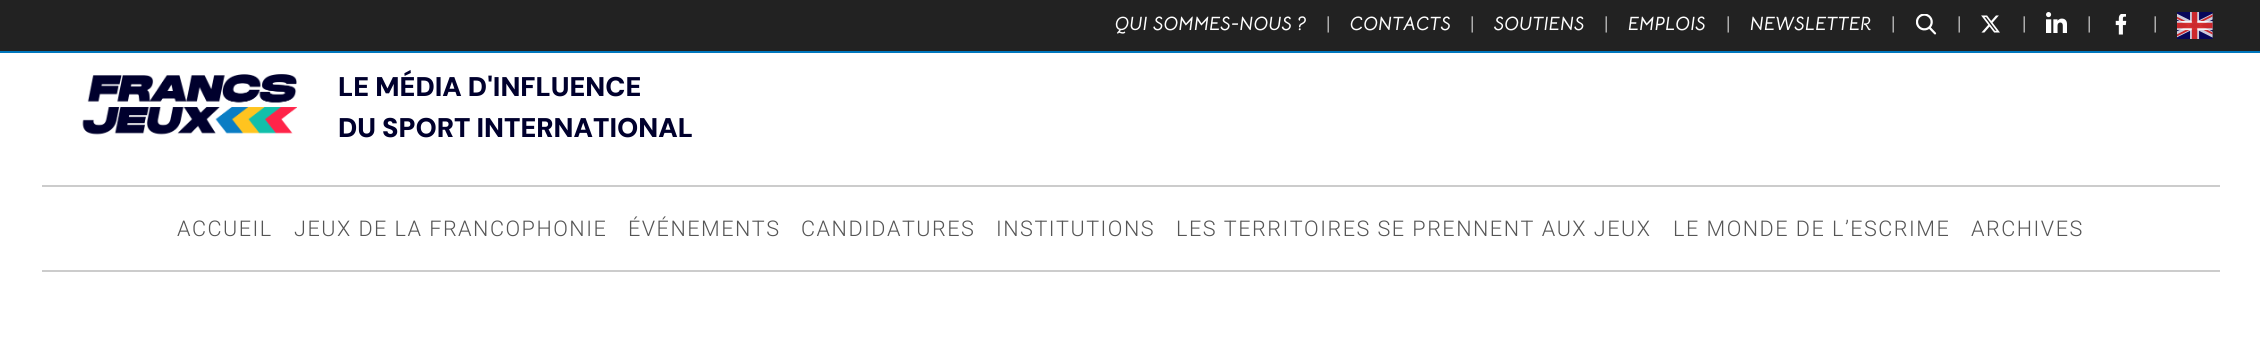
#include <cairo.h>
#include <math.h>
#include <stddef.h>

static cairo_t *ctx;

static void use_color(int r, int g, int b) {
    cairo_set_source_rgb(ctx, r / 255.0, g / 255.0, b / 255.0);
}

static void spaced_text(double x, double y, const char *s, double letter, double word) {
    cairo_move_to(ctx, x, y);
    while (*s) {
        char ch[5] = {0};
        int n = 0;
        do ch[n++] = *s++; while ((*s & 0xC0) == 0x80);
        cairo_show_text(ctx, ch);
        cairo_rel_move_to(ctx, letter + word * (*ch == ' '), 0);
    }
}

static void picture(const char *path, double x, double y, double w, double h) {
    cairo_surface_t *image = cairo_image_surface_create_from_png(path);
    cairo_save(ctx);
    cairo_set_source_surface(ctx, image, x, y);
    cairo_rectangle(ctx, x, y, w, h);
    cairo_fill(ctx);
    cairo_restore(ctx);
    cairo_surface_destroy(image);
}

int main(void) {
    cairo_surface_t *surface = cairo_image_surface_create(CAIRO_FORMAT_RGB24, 2260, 339);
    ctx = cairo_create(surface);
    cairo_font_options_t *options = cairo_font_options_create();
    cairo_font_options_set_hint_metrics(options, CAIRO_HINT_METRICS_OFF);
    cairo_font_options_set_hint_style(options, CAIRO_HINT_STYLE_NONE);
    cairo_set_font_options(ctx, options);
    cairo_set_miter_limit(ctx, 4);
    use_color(255, 255, 255);
    cairo_paint(ctx);
    use_color(34, 34, 34);
    cairo_rectangle(ctx, 0, 0, 2260, 51);
    cairo_fill(ctx);
    use_color(0, 119, 189);
    cairo_rectangle(ctx, 0, 51, 2260, 2);
    cairo_fill(ctx);
    cairo_select_font_face(ctx, "Bellota Text", CAIRO_FONT_SLANT_ITALIC, CAIRO_FONT_WEIGHT_BOLD);
    cairo_set_font_size(ctx, 19.25);
    use_color(255, 255, 255);
    cairo_move_to(ctx, 1115, 30);
    cairo_show_text(ctx, "QUI SOMMES-NOUS ?");
    cairo_select_font_face(ctx, "Roboto Light", CAIRO_FONT_SLANT_NORMAL, CAIRO_FONT_WEIGHT_NORMAL);
    cairo_move_to(ctx, 1326, 30);
    cairo_show_text(ctx, "|");
    cairo_select_font_face(ctx, "Bellota Text", CAIRO_FONT_SLANT_ITALIC, CAIRO_FONT_WEIGHT_BOLD);
    cairo_move_to(ctx, 1350, 30);
    cairo_show_text(ctx, "CONTACTS");
    cairo_select_font_face(ctx, "Roboto Light", CAIRO_FONT_SLANT_NORMAL, CAIRO_FONT_WEIGHT_NORMAL);
    cairo_move_to(ctx, 1470, 30);
    cairo_show_text(ctx, "|");
    cairo_select_font_face(ctx, "Bellota Text", CAIRO_FONT_SLANT_ITALIC, CAIRO_FONT_WEIGHT_BOLD);
    cairo_move_to(ctx, 1494, 30);
    cairo_show_text(ctx, "SOUTIENS");
    cairo_select_font_face(ctx, "Roboto Light", CAIRO_FONT_SLANT_NORMAL, CAIRO_FONT_WEIGHT_NORMAL);
    cairo_move_to(ctx, 1604, 30);
    cairo_show_text(ctx, "|");
    cairo_select_font_face(ctx, "Bellota Text", CAIRO_FONT_SLANT_ITALIC, CAIRO_FONT_WEIGHT_BOLD);
    cairo_move_to(ctx, 1628, 30);
    cairo_show_text(ctx, "EMPLOIS");
    cairo_select_font_face(ctx, "Roboto Light", CAIRO_FONT_SLANT_NORMAL, CAIRO_FONT_WEIGHT_NORMAL);
    cairo_move_to(ctx, 1726, 30);
    cairo_show_text(ctx, "|");
    cairo_select_font_face(ctx, "Bellota Text", CAIRO_FONT_SLANT_ITALIC, CAIRO_FONT_WEIGHT_BOLD);
    cairo_move_to(ctx, 1750, 30);
    cairo_show_text(ctx, "NEWSLETTER");
    cairo_select_font_face(ctx, "Roboto Light", CAIRO_FONT_SLANT_NORMAL, CAIRO_FONT_WEIGHT_NORMAL);
    cairo_move_to(ctx, 1891, 30);
    cairo_show_text(ctx, "|");
    picture("img1.png", 1916, 14, 21, 21);
    cairo_move_to(ctx, 1957, 30);
    cairo_show_text(ctx, "|");
    picture("img2.png", 1981, 15, 19, 18);
    cairo_move_to(ctx, 2022, 30);
    cairo_show_text(ctx, "|");
    picture("img3.png", 2046, 12, 21, 21);
    cairo_move_to(ctx, 2087, 30);
    cairo_show_text(ctx, "|");
    picture("img4.png", 2115, 14, 12, 21);
    cairo_move_to(ctx, 2153, 30);
    cairo_show_text(ctx, "|");
    picture("img5.png", 2177, 12, 36, 27);
    picture("img6.png", 82, 74, 215, 61);
    cairo_select_font_face(ctx, "DM Sans Black", CAIRO_FONT_SLANT_NORMAL, CAIRO_FONT_WEIGHT_NORMAL);
    cairo_set_font_size(ctx, 27);
    use_color(0, 0, 45);
    cairo_move_to(ctx, 338, 96);
    cairo_show_text(ctx, "LE MÉDIA D'INFLUENCE");
    cairo_move_to(ctx, 338, 137);
    cairo_show_text(ctx, "DU SPORT INTERNATIONAL");
    use_color(204, 204, 204);
    cairo_rectangle(ctx, 42, 185, 2178, 2);
    cairo_fill(ctx);
    cairo_rectangle(ctx, 42, 270, 2178, 2);
    cairo_fill(ctx);
    cairo_select_font_face(ctx, "Roboto Light", CAIRO_FONT_SLANT_NORMAL, CAIRO_FONT_WEIGHT_NORMAL);
    cairo_set_font_size(ctx, 21.6);
    use_color(85, 85, 85);
    spaced_text(177, 236, "ACCUEIL", 1.5, 0);
    spaced_text(294, 236, "JEUX DE LA FRANCOPHONIE", 1.5, 0);
    spaced_text(628, 236, "ÉVÉNEMENTS", 1.5, 0);
    spaced_text(801, 236, "CANDIDATURES", 1.5, 0);
    spaced_text(996, 236, "INSTITUTIONS", 1.5, 0);
    spaced_text(1176, 236, "LES TERRITOIRES SE PRENNENT AUX JEUX", 1.5, 0);
    spaced_text(1673, 236, "LE MONDE DE L’ESCRIME", 1.5, 0);
    spaced_text(1971, 236, "ARCHIVES", 1.5, 0);
    cairo_surface_write_to_png(surface, "result.png");
    cairo_font_options_destroy(options);
    cairo_destroy(ctx);
    cairo_surface_destroy(surface);
    return 0;
}
